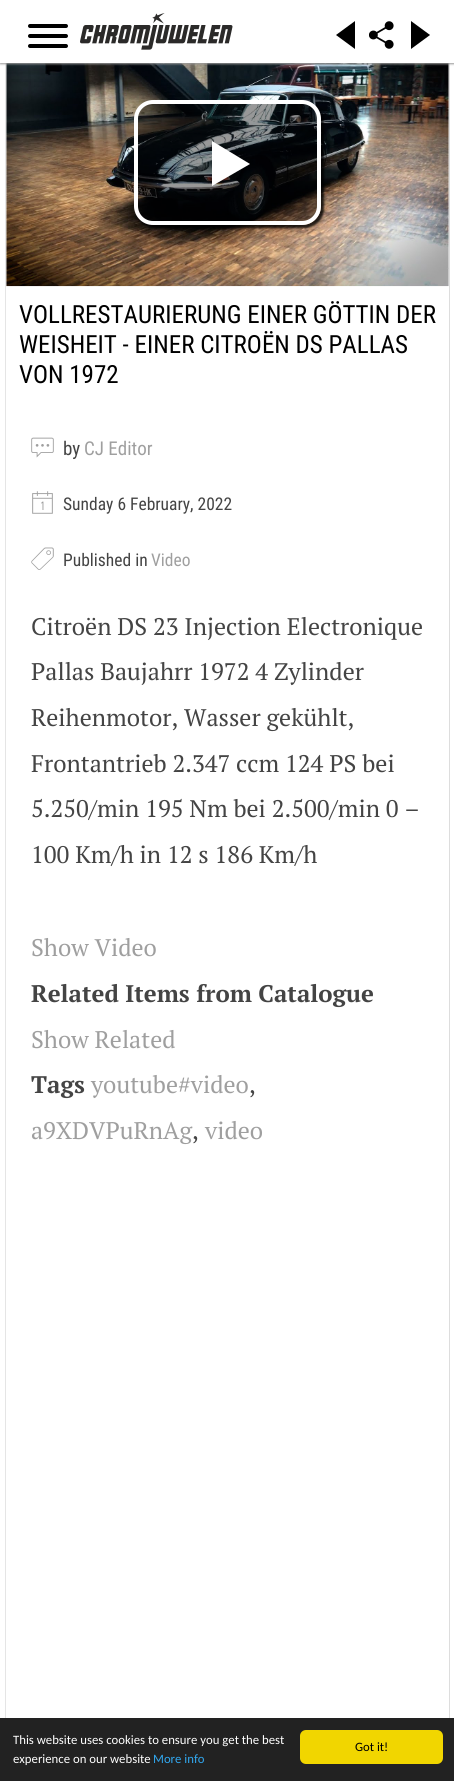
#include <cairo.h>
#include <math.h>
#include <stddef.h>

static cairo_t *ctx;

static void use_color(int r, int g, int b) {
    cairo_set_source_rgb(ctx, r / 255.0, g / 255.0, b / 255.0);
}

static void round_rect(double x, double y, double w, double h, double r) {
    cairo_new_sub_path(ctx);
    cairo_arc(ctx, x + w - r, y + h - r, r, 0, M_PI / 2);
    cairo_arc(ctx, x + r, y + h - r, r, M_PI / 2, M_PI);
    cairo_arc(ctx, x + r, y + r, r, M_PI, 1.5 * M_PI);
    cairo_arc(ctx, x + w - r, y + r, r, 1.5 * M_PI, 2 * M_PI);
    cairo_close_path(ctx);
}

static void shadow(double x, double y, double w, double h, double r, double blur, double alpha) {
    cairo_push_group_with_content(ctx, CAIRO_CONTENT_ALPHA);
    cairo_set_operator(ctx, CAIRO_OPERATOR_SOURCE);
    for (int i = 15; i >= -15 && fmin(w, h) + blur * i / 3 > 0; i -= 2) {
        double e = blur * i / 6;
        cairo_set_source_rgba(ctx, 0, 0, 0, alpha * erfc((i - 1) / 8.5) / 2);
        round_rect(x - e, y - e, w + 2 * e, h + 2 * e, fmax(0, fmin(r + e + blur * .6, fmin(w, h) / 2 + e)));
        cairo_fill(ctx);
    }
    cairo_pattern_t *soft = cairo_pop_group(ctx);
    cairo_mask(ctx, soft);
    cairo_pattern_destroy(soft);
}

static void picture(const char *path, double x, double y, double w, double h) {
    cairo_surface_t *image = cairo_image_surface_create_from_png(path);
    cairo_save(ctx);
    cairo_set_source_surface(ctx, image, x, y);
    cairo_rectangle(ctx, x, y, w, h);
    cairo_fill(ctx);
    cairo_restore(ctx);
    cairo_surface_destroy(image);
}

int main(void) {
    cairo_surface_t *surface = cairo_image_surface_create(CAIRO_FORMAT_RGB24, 454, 1781);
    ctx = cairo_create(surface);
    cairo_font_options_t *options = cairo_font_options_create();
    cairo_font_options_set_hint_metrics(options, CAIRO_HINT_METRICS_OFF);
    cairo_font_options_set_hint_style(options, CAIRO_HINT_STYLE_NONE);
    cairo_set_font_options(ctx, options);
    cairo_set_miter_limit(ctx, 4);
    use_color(255, 255, 255);
    cairo_paint(ctx);
    use_color(229, 229, 229);
    cairo_rectangle(ctx, 5, 63, 1, 1655);
    cairo_fill(ctx);
    picture("img3.png", 6, 63, 443, 224);
    use_color(221, 221, 221);
    cairo_rectangle(ctx, 449, 63, 1, 1655);
    cairo_fill(ctx);
    use_color(153, 153, 153);
    shadow(0, 1, 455, 63, 0, 1, 1);
    use_color(255, 255, 255);
    cairo_rectangle(ctx, 0, 0, 454, 63);
    cairo_fill(ctx);
    picture("img1.png", 80, 13, 153, 37);
    use_color(0, 0, 0);
    cairo_new_path(ctx);
    cairo_move_to(ctx, 355, 21);
    cairo_line_to(ctx, 355, 49);
    cairo_line_to(ctx, 336, 35);
    cairo_close_path(ctx);
    cairo_fill(ctx);
    cairo_new_path(ctx);
    cairo_move_to(ctx, 411, 49);
    cairo_line_to(ctx, 411, 21);
    cairo_line_to(ctx, 430, 35);
    cairo_close_path(ctx);
    cairo_fill(ctx);
    round_rect(28, 24, 40, 4, 2);
    cairo_fill(ctx);
    round_rect(28, 34, 40, 4, 2);
    cairo_fill(ctx);
    round_rect(28, 44, 40, 4, 2);
    cairo_fill(ctx);
    picture("img2.png", 369, 21, 25, 28);
    cairo_save(ctx);
    cairo_set_fill_rule(ctx, CAIRO_FILL_RULE_EVEN_ODD);
    cairo_new_path(ctx);
    cairo_move_to(ctx, 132, 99);
    cairo_line_to(ctx, 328, 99);
    cairo_line_to(ctx, 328, 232);
    cairo_line_to(ctx, 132, 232);
    cairo_close_path(ctx);
    cairo_move_to(ctx, 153, 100);
    cairo_line_to(ctx, 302, 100);
    cairo_curve_to(ctx, 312.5, 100, 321, 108.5, 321, 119);
    cairo_line_to(ctx, 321, 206);
    cairo_curve_to(ctx, 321, 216.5, 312.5, 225, 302, 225);
    cairo_line_to(ctx, 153, 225);
    cairo_curve_to(ctx, 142.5, 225, 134, 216.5, 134, 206);
    cairo_line_to(ctx, 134, 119);
    cairo_curve_to(ctx, 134, 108.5, 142.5, 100, 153, 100);
    cairo_close_path(ctx);
    cairo_clip(ctx);
    use_color(0, 0, 0);
    shadow(136, 103, 188, 125, 19, 1, 0.8);
    cairo_restore(ctx);
    cairo_set_source_rgba(ctx, 0, 0, 0, 0.4);
    round_rect(136, 102, 183, 121, 17);
    cairo_fill_preserve(ctx);
    use_color(255, 255, 255);
    cairo_set_line_width(ctx, 4);
    cairo_stroke(ctx);
    cairo_new_path(ctx);
    cairo_move_to(ctx, 212, 186);
    cairo_line_to(ctx, 212, 141);
    cairo_line_to(ctx, 250, 164);
    cairo_close_path(ctx);
    cairo_fill(ctx);
    cairo_select_font_face(ctx, "Roboto Condensed", CAIRO_FONT_SLANT_NORMAL, CAIRO_FONT_WEIGHT_NORMAL);
    cairo_set_font_size(ctx, 25);
    use_color(0, 0, 0);
    cairo_move_to(ctx, 19, 323);
    cairo_show_text(ctx, "VOLLRESTAURIERUNG EINER GÖTTIN DER");
    cairo_move_to(ctx, 19, 353);
    cairo_show_text(ctx, "WEISHEIT - EINER CITROËN DS PALLAS");
    cairo_move_to(ctx, 19, 383);
    cairo_show_text(ctx, "VON 1972");
    picture("img4.png", 31, 437, 23, 21);
    cairo_set_font_size(ctx, 19);
    use_color(68, 68, 68);
    cairo_move_to(ctx, 63, 455);
    cairo_show_text(ctx, "by");
    use_color(159, 159, 159);
    cairo_move_to(ctx, 84, 455);
    cairo_show_text(ctx, "CJ Editor");
    picture("img5.png", 32, 491, 21, 23);
    cairo_set_font_size(ctx, 17.5);
    use_color(68, 68, 68);
    cairo_move_to(ctx, 63, 510);
    cairo_show_text(ctx, "Sunday 6 February, 2022");
    picture("img6.png", 31, 547, 23, 23);
    cairo_move_to(ctx, 63, 566);
    cairo_show_text(ctx, "Published in");
    use_color(159, 159, 159);
    cairo_move_to(ctx, 151, 566);
    cairo_show_text(ctx, "Video");
    cairo_select_font_face(ctx, "PT Serif", CAIRO_FONT_SLANT_NORMAL, CAIRO_FONT_WEIGHT_NORMAL);
    cairo_set_font_size(ctx, 24);
    use_color(68, 68, 68);
    cairo_move_to(ctx, 31, 635);
    cairo_show_text(ctx, "Citroën DS 23 Injection Electronique");
    cairo_move_to(ctx, 31, 680);
    cairo_show_text(ctx, "Pallas Baujahrr 1972 4 Zylinder");
    cairo_move_to(ctx, 31, 726);
    cairo_show_text(ctx, "Reihenmotor, Wasser gekühlt,");
    cairo_move_to(ctx, 31, 772);
    cairo_show_text(ctx, "Frontantrieb 2.347 ccm 124 PS bei");
    cairo_move_to(ctx, 31, 817);
    cairo_show_text(ctx, "5.250/min 195 Nm bei 2.500/min 0 –");
    cairo_move_to(ctx, 31, 863);
    cairo_show_text(ctx, "100 Km/h in 12 s 186 Km/h");
    use_color(159, 159, 159);
    cairo_move_to(ctx, 31, 956);
    cairo_show_text(ctx, "Show Video");
    cairo_select_font_face(ctx, "PT Serif", CAIRO_FONT_SLANT_NORMAL, CAIRO_FONT_WEIGHT_BOLD);
    use_color(68, 68, 68);
    cairo_move_to(ctx, 31, 1002);
    cairo_show_text(ctx, "Related Items from Catalogue");
    cairo_select_font_face(ctx, "PT Serif", CAIRO_FONT_SLANT_NORMAL, CAIRO_FONT_WEIGHT_NORMAL);
    use_color(159, 159, 159);
    cairo_move_to(ctx, 31, 1048);
    cairo_show_text(ctx, "Show Related");
    cairo_select_font_face(ctx, "PT Serif", CAIRO_FONT_SLANT_NORMAL, CAIRO_FONT_WEIGHT_BOLD);
    use_color(68, 68, 68);
    cairo_move_to(ctx, 31, 1093);
    cairo_show_text(ctx, "Tags");
    cairo_select_font_face(ctx, "PT Serif", CAIRO_FONT_SLANT_NORMAL, CAIRO_FONT_WEIGHT_NORMAL);
    use_color(159, 159, 159);
    cairo_move_to(ctx, 91, 1093);
    cairo_show_text(ctx, "youtube#video");
    use_color(68, 68, 68);
    cairo_move_to(ctx, 249, 1093);
    cairo_show_text(ctx, ",");
    use_color(159, 159, 159);
    cairo_move_to(ctx, 31, 1139);
    cairo_show_text(ctx, "a9XDVPuRnAg");
    use_color(68, 68, 68);
    cairo_move_to(ctx, 192, 1139);
    cairo_show_text(ctx, ",");
    use_color(159, 159, 159);
    cairo_move_to(ctx, 205, 1139);
    cairo_show_text(ctx, "video");
    use_color(34, 34, 34);
    cairo_rectangle(ctx, 0, 1718, 454, 63);
    cairo_fill(ctx);
    cairo_select_font_face(ctx, "Carlito", CAIRO_FONT_SLANT_NORMAL, CAIRO_FONT_WEIGHT_NORMAL);
    cairo_set_font_size(ctx, 12.75);
    use_color(255, 255, 255);
    cairo_move_to(ctx, 13, 1744);
    cairo_show_text(ctx, "This website uses cookies to ensure you get the best");
    cairo_move_to(ctx, 13, 1763);
    cairo_show_text(ctx, "experience on our website");
    use_color(49, 168, 240);
    cairo_move_to(ctx, 153, 1763);
    cairo_show_text(ctx, "More info");
    use_color(241, 214, 0);
    round_rect(300, 1730, 143, 34, 6);
    cairo_fill(ctx);
    use_color(0, 0, 0);
    cairo_move_to(ctx, 355, 1751);
    cairo_show_text(ctx, "Got it!");
    cairo_surface_write_to_png(surface, "result.png");
    cairo_font_options_destroy(options);
    cairo_destroy(ctx);
    cairo_surface_destroy(surface);
    return 0;
}
